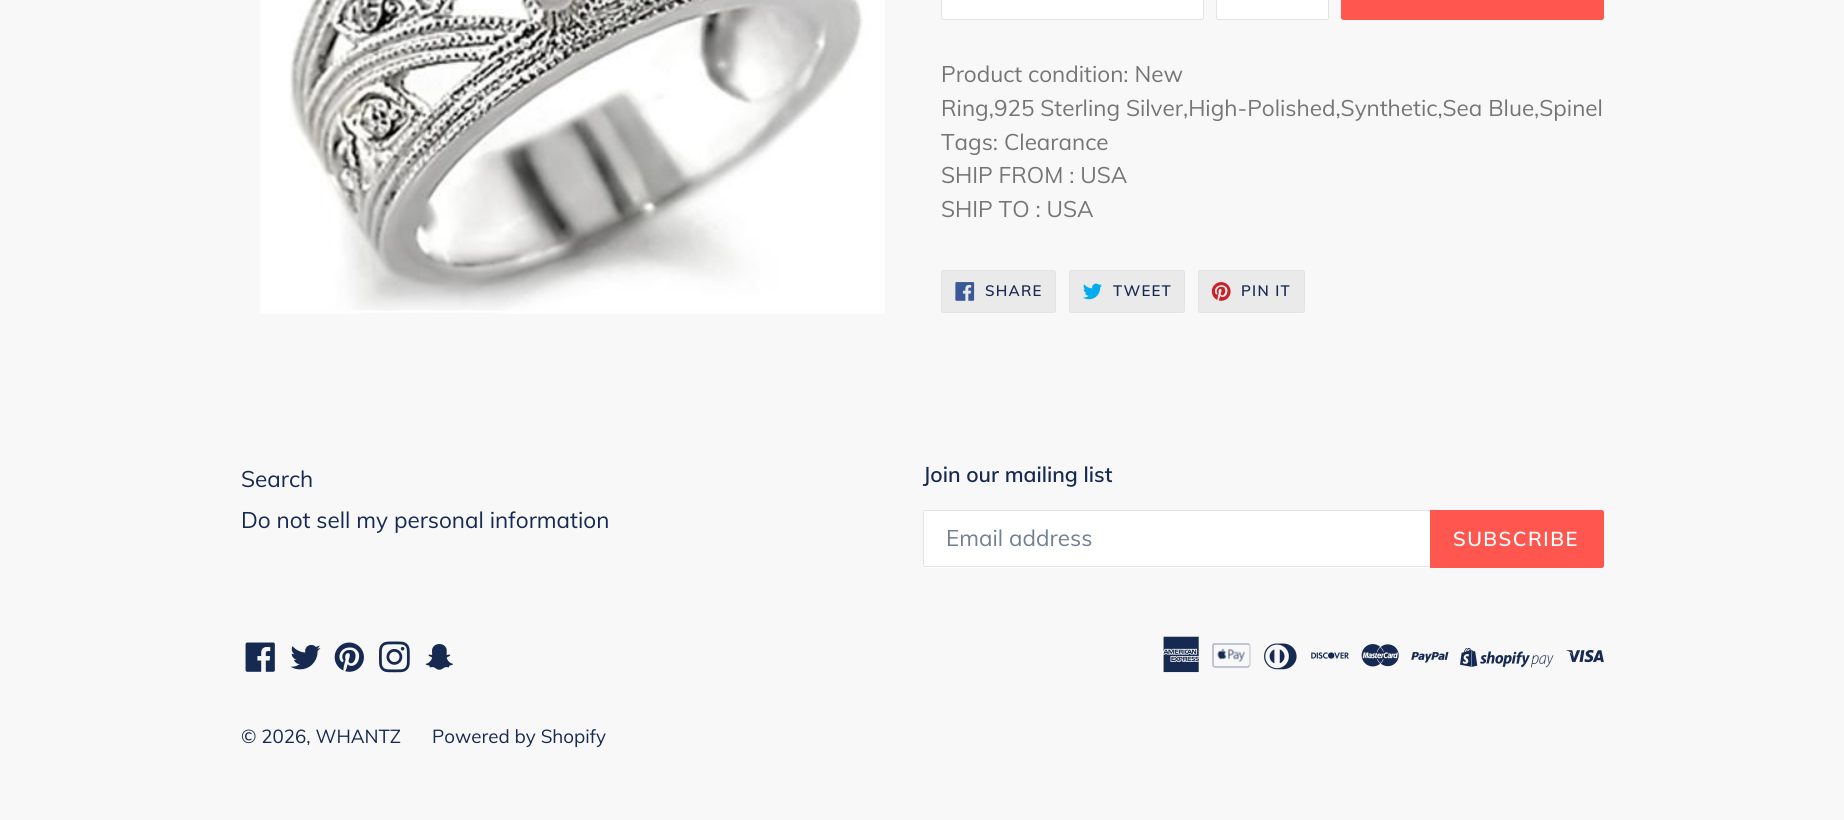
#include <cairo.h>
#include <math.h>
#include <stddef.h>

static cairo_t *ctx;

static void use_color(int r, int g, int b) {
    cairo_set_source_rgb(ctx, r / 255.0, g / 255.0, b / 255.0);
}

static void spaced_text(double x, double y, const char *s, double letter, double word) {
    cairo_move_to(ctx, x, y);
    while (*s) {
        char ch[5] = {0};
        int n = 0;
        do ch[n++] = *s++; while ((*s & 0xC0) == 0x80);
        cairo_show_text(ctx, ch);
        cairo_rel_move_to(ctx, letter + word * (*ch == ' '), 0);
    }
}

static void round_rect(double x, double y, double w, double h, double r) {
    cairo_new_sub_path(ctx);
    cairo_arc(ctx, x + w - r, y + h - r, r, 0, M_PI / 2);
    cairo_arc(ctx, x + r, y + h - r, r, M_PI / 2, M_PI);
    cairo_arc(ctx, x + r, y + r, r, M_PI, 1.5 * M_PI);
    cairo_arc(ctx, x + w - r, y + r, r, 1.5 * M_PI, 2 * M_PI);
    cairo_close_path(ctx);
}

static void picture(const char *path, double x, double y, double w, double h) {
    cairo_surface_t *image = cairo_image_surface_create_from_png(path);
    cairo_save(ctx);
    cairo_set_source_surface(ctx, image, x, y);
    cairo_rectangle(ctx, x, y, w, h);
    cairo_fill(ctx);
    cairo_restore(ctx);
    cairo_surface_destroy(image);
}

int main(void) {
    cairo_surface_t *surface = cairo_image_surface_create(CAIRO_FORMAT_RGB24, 1844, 820);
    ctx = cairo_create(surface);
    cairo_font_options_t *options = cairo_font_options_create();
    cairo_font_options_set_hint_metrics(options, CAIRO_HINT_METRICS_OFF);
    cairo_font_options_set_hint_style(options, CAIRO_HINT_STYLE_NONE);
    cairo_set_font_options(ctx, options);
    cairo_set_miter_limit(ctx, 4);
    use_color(248, 248, 248);
    cairo_paint(ctx);
    picture("img1.png", 260, 0, 625, 314);
    use_color(255, 255, 255);
    round_rect(941.5, -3.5, 262, 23, 2);
    cairo_fill_preserve(ctx);
    use_color(228, 228, 228);
    cairo_set_line_width(ctx, 1);
    cairo_stroke(ctx);
    use_color(255, 255, 255);
    round_rect(1216.5, -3.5, 112, 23, 2);
    cairo_fill_preserve(ctx);
    use_color(228, 228, 228);
    cairo_stroke(ctx);
    use_color(255, 87, 79);
    round_rect(1341, -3, 263, 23, 2.5);
    cairo_fill(ctx);
    cairo_select_font_face(ctx, "Muli", CAIRO_FONT_SLANT_NORMAL, CAIRO_FONT_WEIGHT_NORMAL);
    cairo_set_font_size(ctx, 22.5);
    use_color(117, 117, 117);
    cairo_move_to(ctx, 941, 82);
    cairo_show_text(ctx, "Product condition: New");
    cairo_move_to(ctx, 941, 116);
    cairo_show_text(ctx, "Ring,925 Sterling Silver,High-Polished,Synthetic,Sea Blue,Spinel");
    cairo_move_to(ctx, 941, 150);
    cairo_show_text(ctx, "Tags: Clearance");
    cairo_move_to(ctx, 941, 183);
    cairo_show_text(ctx, "SHIP FROM : USA");
    cairo_move_to(ctx, 941, 217);
    cairo_show_text(ctx, "SHIP TO : USA");
    use_color(234, 234, 234);
    round_rect(941.5, 270.5, 114, 42, 2);
    cairo_fill_preserve(ctx);
    use_color(228, 228, 228);
    cairo_stroke(ctx);
    picture("img2.png", 955, 282, 20, 19);
    cairo_select_font_face(ctx, "Muli SemiBold", CAIRO_FONT_SLANT_NORMAL, CAIRO_FONT_WEIGHT_NORMAL);
    cairo_set_font_size(ctx, 15);
    use_color(22, 41, 80);
    spaced_text(985, 296, "SHARE", 1.25, 0);
    use_color(234, 234, 234);
    round_rect(1069.5, 270.5, 115, 42, 2);
    cairo_fill_preserve(ctx);
    use_color(228, 228, 228);
    cairo_stroke(ctx);
    picture("img3.png", 1083, 283, 19, 17);
    use_color(22, 41, 80);
    spaced_text(1113, 296, "TWEET", 1.25, 0);
    use_color(234, 234, 234);
    round_rect(1198.5, 270.5, 106, 42, 2);
    cairo_fill_preserve(ctx);
    use_color(228, 228, 228);
    cairo_stroke(ctx);
    picture("img4.png", 1211, 282, 20, 19);
    use_color(22, 41, 80);
    spaced_text(1241, 296, "PIN IT", 1.25, 0);
    cairo_select_font_face(ctx, "Muli", CAIRO_FONT_SLANT_NORMAL, CAIRO_FONT_WEIGHT_NORMAL);
    cairo_set_font_size(ctx, 22.5);
    cairo_move_to(ctx, 241, 487);
    cairo_show_text(ctx, "Search");
    cairo_move_to(ctx, 241, 528);
    cairo_show_text(ctx, "Do not sell my personal information");
    cairo_select_font_face(ctx, "Muli SemiBold", CAIRO_FONT_SLANT_NORMAL, CAIRO_FONT_WEIGHT_NORMAL);
    cairo_set_font_size(ctx, 21.25);
    cairo_move_to(ctx, 923, 482);
    cairo_show_text(ctx, "Join our mailing list");
    use_color(255, 255, 255);
    cairo_new_path(ctx);
    cairo_move_to(ctx, 925.5, 510);
    cairo_line_to(ctx, 1430, 510);
    cairo_line_to(ctx, 1430, 568);
    cairo_line_to(ctx, 925.5, 568);
    cairo_curve_to(ctx, 924, 568, 923, 567, 923, 565.5);
    cairo_line_to(ctx, 923, 512.5);
    cairo_curve_to(ctx, 923, 511, 924, 510, 925.5, 510);
    cairo_close_path(ctx);
    cairo_fill(ctx);
    use_color(228, 228, 228);
    cairo_rectangle(ctx, 924, 510, 506, 1);
    cairo_fill(ctx);
    cairo_rectangle(ctx, 924, 566, 506, 1);
    cairo_fill(ctx);
    cairo_rectangle(ctx, 923, 511, 1, 55);
    cairo_fill(ctx);
    cairo_select_font_face(ctx, "Muli", CAIRO_FONT_SLANT_NORMAL, CAIRO_FONT_WEIGHT_NORMAL);
    cairo_set_font_size(ctx, 22.5);
    use_color(115, 127, 150);
    cairo_move_to(ctx, 946, 546);
    cairo_show_text(ctx, "Email address");
    use_color(255, 87, 79);
    cairo_new_path(ctx);
    cairo_move_to(ctx, 1430, 510);
    cairo_line_to(ctx, 1601.5, 510);
    cairo_curve_to(ctx, 1603, 510, 1604, 511, 1604, 512.5);
    cairo_line_to(ctx, 1604, 565.5);
    cairo_curve_to(ctx, 1604, 567, 1603, 568, 1601.5, 568);
    cairo_line_to(ctx, 1430, 568);
    cairo_close_path(ctx);
    cairo_fill(ctx);
    cairo_select_font_face(ctx, "Muli SemiBold", CAIRO_FONT_SLANT_NORMAL, CAIRO_FONT_WEIGHT_NORMAL);
    cairo_set_font_size(ctx, 20);
    use_color(255, 255, 255);
    spaced_text(1453, 546, "SUBSCRIBE", 1.5, 0);
    picture("img5.png", 245, 642, 30, 30);
    picture("img6.png", 290, 644, 31, 26);
    picture("img7.png", 334, 642, 30, 30);
    picture("img8.png", 379, 641, 31, 32);
    picture("img9.png", 425, 644, 28, 26);
    picture("img10.png", 1163, 636, 36, 37);
    picture("img11.png", 1212, 643, 39, 25);
    picture("img12.png", 1264, 643, 33, 27);
    picture("img13.png", 1311, 652, 38, 7);
    picture("img14.png", 1361, 644, 38, 23);
    picture("img15.png", 1411, 652, 38, 11);
    picture("img16.png", 1460, 648, 94, 20);
    picture("img17.png", 1566, 650, 38, 13);
    cairo_select_font_face(ctx, "Muli", CAIRO_FONT_SLANT_NORMAL, CAIRO_FONT_WEIGHT_NORMAL);
    cairo_set_font_size(ctx, 18.75);
    use_color(22, 41, 80);
    cairo_move_to(ctx, 241, 743);
    cairo_show_text(ctx, "© 2026, WHANTZ");
    cairo_move_to(ctx, 432, 743);
    cairo_show_text(ctx, "Powered by Shopify");
    cairo_surface_write_to_png(surface, "result.png");
    cairo_font_options_destroy(options);
    cairo_destroy(ctx);
    cairo_surface_destroy(surface);
    return 0;
}
